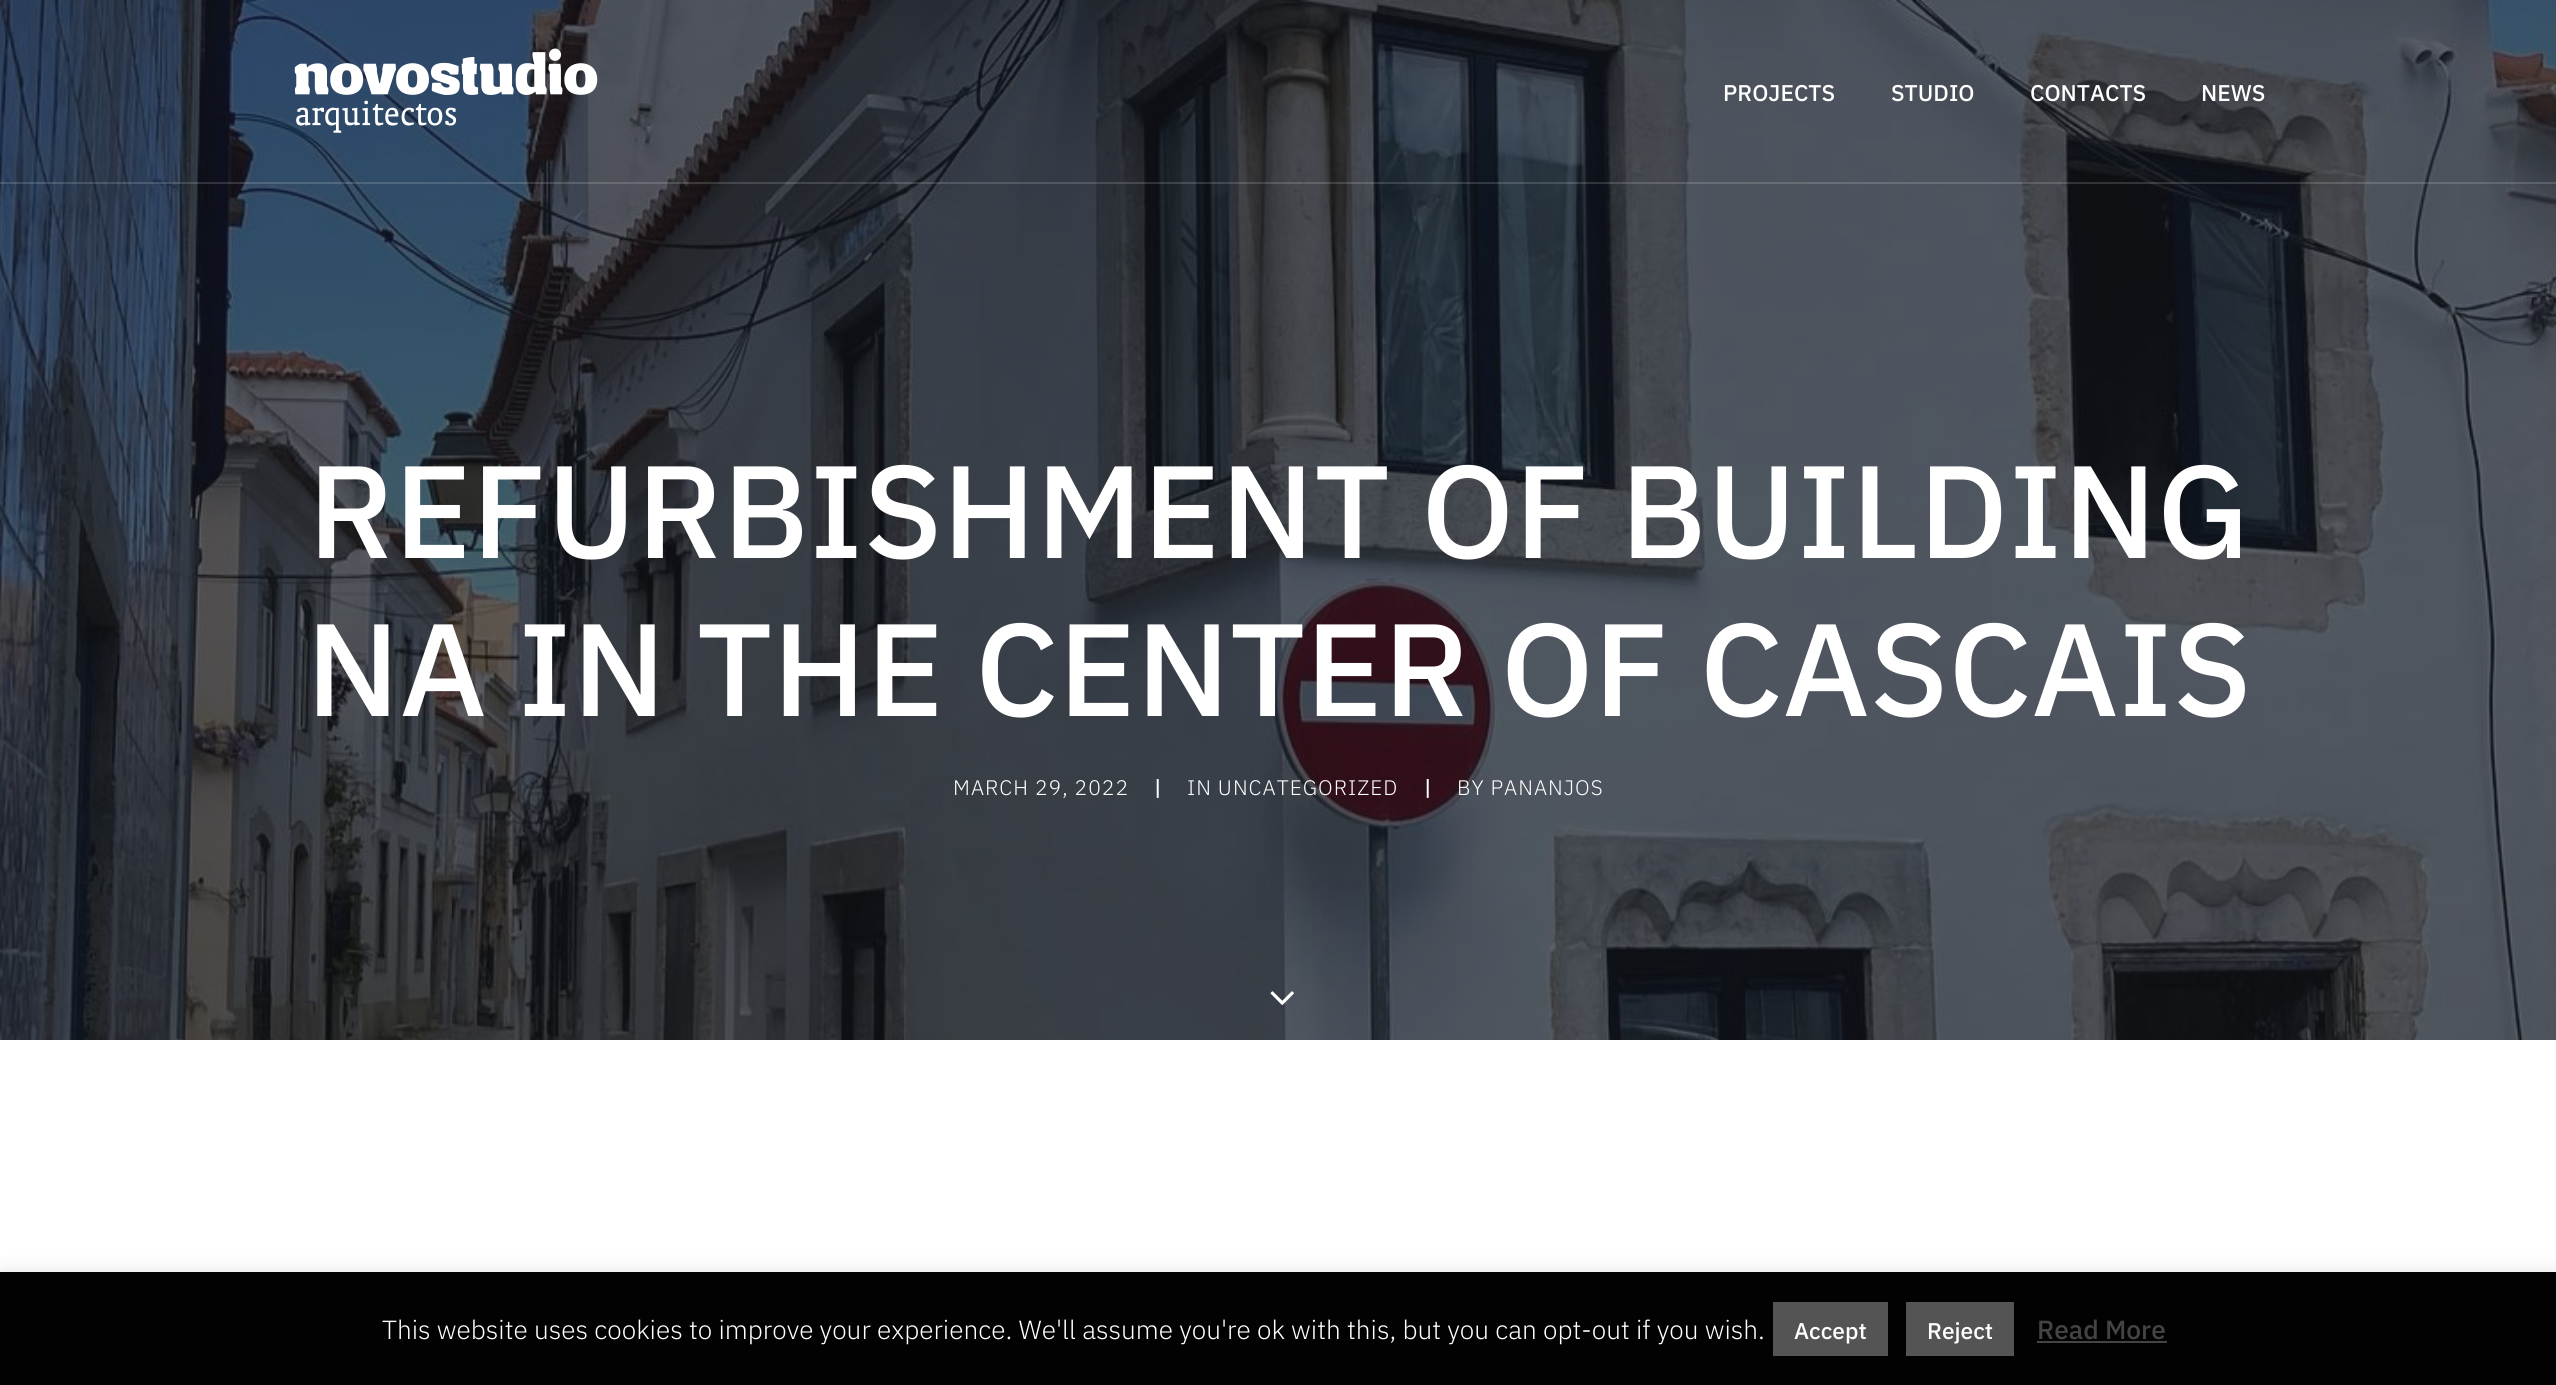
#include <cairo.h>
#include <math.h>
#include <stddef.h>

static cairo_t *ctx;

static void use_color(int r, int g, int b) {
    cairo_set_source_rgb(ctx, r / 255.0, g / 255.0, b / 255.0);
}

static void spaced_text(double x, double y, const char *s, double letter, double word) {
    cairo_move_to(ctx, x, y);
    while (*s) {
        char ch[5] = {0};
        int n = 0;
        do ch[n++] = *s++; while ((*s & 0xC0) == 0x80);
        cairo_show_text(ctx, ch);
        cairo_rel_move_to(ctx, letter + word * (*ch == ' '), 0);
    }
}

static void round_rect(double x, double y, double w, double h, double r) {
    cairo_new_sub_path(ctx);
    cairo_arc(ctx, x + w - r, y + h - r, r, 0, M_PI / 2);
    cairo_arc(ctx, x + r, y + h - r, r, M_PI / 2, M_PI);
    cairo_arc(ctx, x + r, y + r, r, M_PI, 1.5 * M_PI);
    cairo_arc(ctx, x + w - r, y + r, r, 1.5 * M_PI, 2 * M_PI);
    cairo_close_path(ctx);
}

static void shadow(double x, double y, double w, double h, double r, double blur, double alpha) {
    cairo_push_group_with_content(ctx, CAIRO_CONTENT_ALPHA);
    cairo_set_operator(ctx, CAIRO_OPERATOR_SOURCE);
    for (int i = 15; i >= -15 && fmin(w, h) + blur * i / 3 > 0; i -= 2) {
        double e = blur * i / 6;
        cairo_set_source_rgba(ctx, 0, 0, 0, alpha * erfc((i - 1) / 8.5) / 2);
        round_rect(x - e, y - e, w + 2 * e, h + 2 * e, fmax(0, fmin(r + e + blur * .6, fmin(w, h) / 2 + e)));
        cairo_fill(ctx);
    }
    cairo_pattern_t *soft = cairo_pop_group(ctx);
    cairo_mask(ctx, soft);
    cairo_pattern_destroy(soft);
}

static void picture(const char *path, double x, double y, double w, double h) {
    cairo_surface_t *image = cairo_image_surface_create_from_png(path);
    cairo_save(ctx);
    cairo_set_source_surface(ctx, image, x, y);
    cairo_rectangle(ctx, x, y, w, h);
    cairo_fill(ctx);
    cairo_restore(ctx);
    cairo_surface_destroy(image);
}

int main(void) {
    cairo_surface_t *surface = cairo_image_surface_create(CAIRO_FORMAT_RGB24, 2556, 1385);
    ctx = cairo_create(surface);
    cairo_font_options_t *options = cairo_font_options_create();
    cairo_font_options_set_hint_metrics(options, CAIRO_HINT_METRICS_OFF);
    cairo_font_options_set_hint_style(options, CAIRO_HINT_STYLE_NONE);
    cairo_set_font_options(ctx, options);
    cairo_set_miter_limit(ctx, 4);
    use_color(255, 255, 255);
    cairo_paint(ctx);
    picture("img2.png", 0, 0, 2556, 1040);
    cairo_set_source_rgba(ctx, 1, 1, 1, 0.15);
    cairo_rectangle(ctx, 0, 182, 2556, 2);
    cairo_fill(ctx);
    picture("img1.png", 294, 48, 304, 85);
    cairo_select_font_face(ctx, "IBM Plex Sans Medium", CAIRO_FONT_SLANT_NORMAL, CAIRO_FONT_WEIGHT_NORMAL);
    cairo_set_font_size(ctx, 22.75);
    use_color(255, 255, 255);
    cairo_move_to(ctx, 1723, 101);
    cairo_show_text(ctx, "PROJECTS");
    cairo_move_to(ctx, 1891, 101);
    cairo_show_text(ctx, "STUDIO");
    cairo_move_to(ctx, 2030, 101);
    cairo_show_text(ctx, "CONTACTS");
    cairo_move_to(ctx, 2201, 101);
    cairo_show_text(ctx, "NEWS");
    cairo_set_font_size(ctx, 131.25);
    cairo_move_to(ctx, 308, 558);
    cairo_show_text(ctx, "REFURBISHMENT OF BUILDING");
    cairo_move_to(ctx, 306, 716);
    cairo_show_text(ctx, "NA IN THE CENTER OF CASCAIS");
    cairo_select_font_face(ctx, "IBM Plex Sans Light", CAIRO_FONT_SLANT_NORMAL, CAIRO_FONT_WEIGHT_NORMAL);
    cairo_set_font_size(ctx, 21);
    spaced_text(953, 795, "MARCH 29, 2022", 1, 0);
    cairo_select_font_face(ctx, "IBM Plex Sans Medium", CAIRO_FONT_SLANT_NORMAL, CAIRO_FONT_WEIGHT_NORMAL);
    spaced_text(1154, 795, "|", 1, 0);
    cairo_select_font_face(ctx, "IBM Plex Sans Light", CAIRO_FONT_SLANT_NORMAL, CAIRO_FONT_WEIGHT_NORMAL);
    spaced_text(1187, 795, "IN UNCATEGORIZED", 1, 0);
    cairo_select_font_face(ctx, "IBM Plex Sans Medium", CAIRO_FONT_SLANT_NORMAL, CAIRO_FONT_WEIGHT_NORMAL);
    spaced_text(1424, 795, "|", 1, 0);
    cairo_select_font_face(ctx, "IBM Plex Sans Light", CAIRO_FONT_SLANT_NORMAL, CAIRO_FONT_WEIGHT_NORMAL);
    spaced_text(1457, 795, "BY PANANJOS", 1, 0);
    picture("img3.png", 1270, 991, 24, 14);
    use_color(172, 171, 171);
    shadow(0, 1271, 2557, 113, 0, 9, 0.3);
    use_color(2, 2, 2);
    cairo_rectangle(ctx, 0, 1272, 2556, 113);
    cairo_fill(ctx);
    cairo_set_font_size(ctx, 26.25);
    use_color(255, 255, 255);
    cairo_move_to(ctx, 382, 1339);
    cairo_show_text(ctx, "This website uses cookies to improve your experience. We'll assume you're ok with this, but you can opt-out if you wish.");
    use_color(84, 84, 84);
    cairo_rectangle(ctx, 1773, 1302, 115, 54);
    cairo_fill(ctx);
    cairo_select_font_face(ctx, "IBM Plex Sans Medium", CAIRO_FONT_SLANT_NORMAL, CAIRO_FONT_WEIGHT_NORMAL);
    cairo_set_font_size(ctx, 22.75);
    use_color(255, 255, 255);
    cairo_move_to(ctx, 1794, 1339);
    cairo_show_text(ctx, "Accept");
    use_color(84, 84, 84);
    cairo_rectangle(ctx, 1906, 1302, 108, 54);
    cairo_fill(ctx);
    use_color(255, 255, 255);
    cairo_move_to(ctx, 1927, 1339);
    cairo_show_text(ctx, "Reject");
    cairo_set_font_size(ctx, 26.25);
    use_color(68, 68, 68);
    cairo_move_to(ctx, 2037, 1339);
    cairo_show_text(ctx, "Read More");
    cairo_rectangle(ctx, 2037, 1341, 130, 2);
    cairo_fill(ctx);
    cairo_surface_write_to_png(surface, "result.png");
    cairo_font_options_destroy(options);
    cairo_destroy(ctx);
    cairo_surface_destroy(surface);
    return 0;
}
